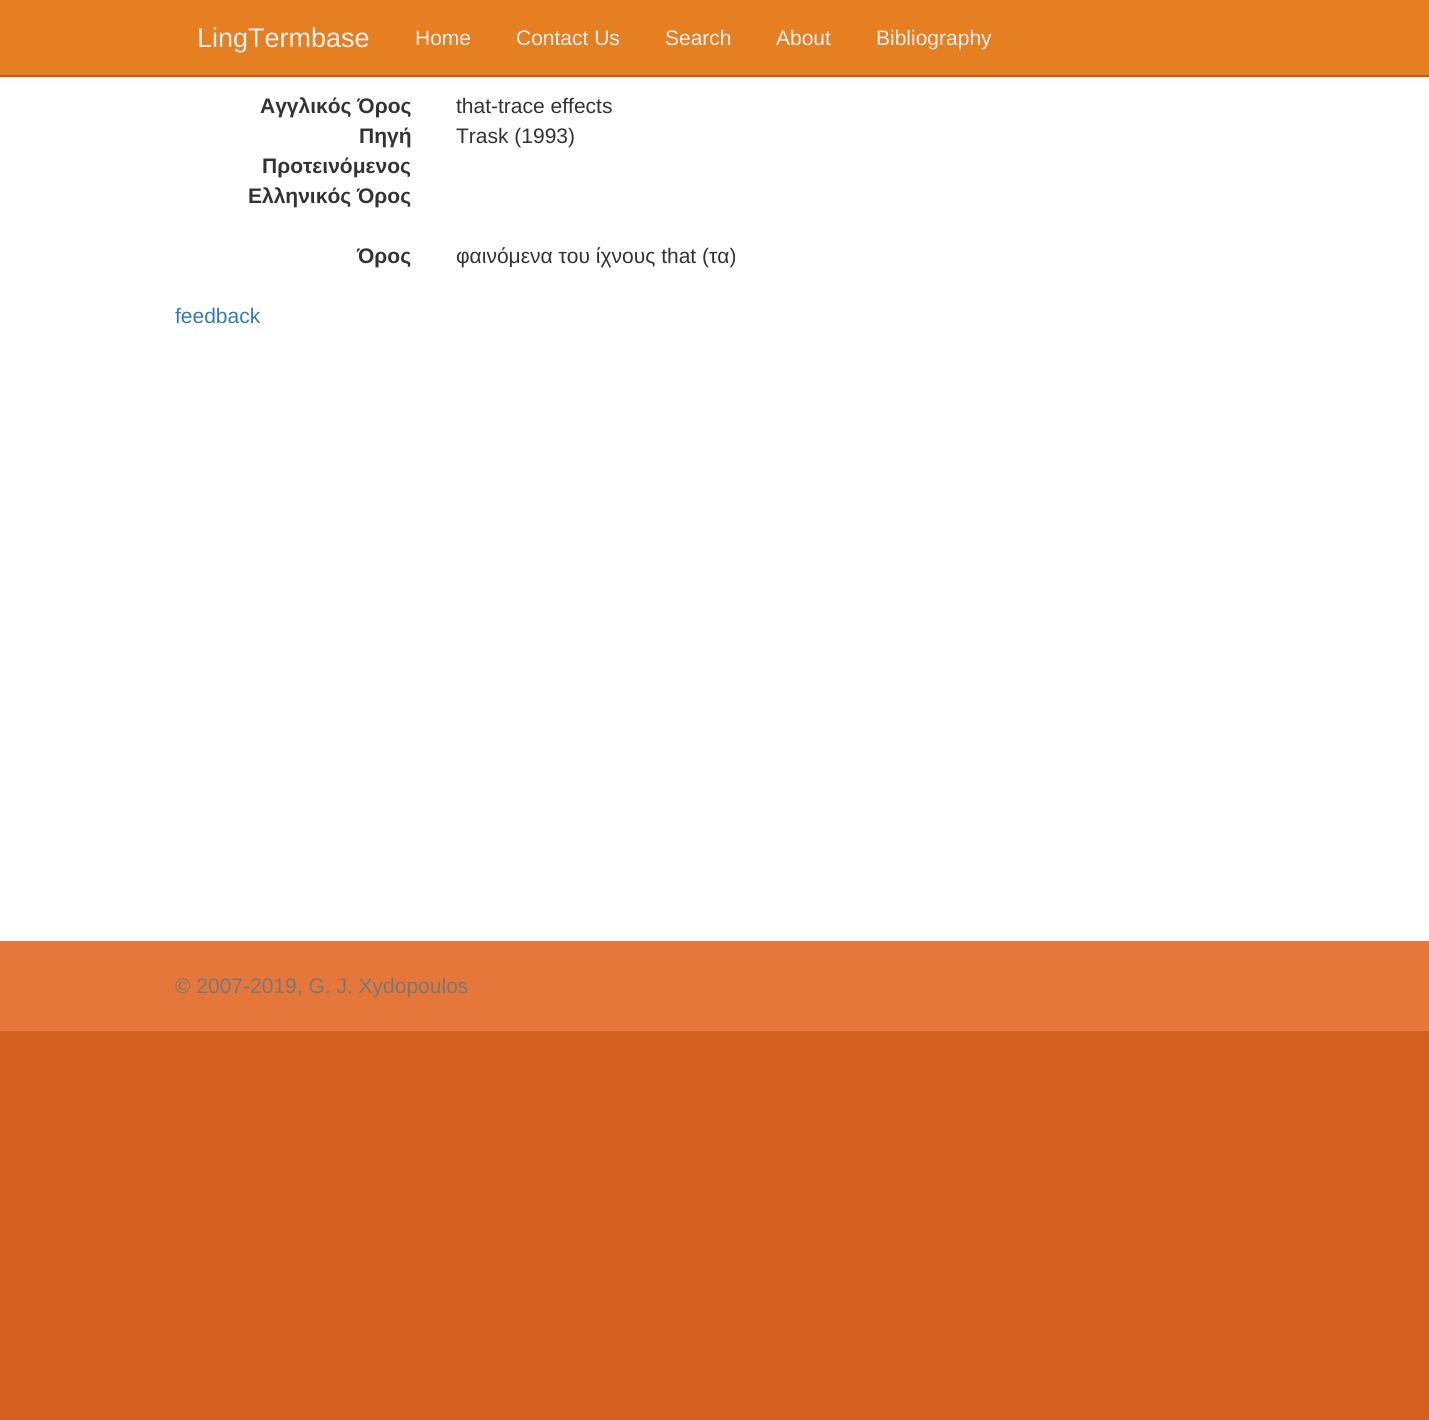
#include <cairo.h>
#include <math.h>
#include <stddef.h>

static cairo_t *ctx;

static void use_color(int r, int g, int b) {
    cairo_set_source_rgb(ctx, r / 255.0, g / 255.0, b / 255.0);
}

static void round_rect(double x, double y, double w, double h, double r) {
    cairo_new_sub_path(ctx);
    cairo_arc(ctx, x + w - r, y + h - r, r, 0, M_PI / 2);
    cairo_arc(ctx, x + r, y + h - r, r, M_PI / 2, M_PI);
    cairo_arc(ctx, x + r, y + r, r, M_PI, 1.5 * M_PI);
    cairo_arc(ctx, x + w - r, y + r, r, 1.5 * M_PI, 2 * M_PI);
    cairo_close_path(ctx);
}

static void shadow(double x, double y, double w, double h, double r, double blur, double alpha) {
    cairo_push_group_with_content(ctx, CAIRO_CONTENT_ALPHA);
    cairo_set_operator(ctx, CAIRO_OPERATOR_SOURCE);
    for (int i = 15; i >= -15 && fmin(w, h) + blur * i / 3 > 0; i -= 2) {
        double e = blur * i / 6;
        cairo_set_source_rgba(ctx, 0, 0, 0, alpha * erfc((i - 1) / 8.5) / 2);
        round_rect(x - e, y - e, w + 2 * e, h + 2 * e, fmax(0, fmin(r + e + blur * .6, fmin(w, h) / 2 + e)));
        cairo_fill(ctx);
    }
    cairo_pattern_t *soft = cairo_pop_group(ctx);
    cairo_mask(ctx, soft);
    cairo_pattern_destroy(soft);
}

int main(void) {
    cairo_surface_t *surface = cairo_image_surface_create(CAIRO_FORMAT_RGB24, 1429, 1420);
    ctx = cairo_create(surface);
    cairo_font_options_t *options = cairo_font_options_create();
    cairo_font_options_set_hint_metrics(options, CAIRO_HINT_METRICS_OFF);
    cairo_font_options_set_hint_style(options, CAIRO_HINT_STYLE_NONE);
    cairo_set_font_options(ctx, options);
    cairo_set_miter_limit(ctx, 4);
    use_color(255, 255, 255);
    cairo_paint(ctx);
    use_color(0, 0, 0);
    shadow(0, 2, 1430, 76, 0, 4, 0.07);
    use_color(211, 84, 0);
    cairo_rectangle(ctx, 0, 75, 1429, 2);
    cairo_fill(ctx);
    use_color(230, 126, 34);
    cairo_rectangle(ctx, 0, 0, 1429, 75);
    cairo_fill(ctx);
    cairo_select_font_face(ctx, "Liberation Sans", CAIRO_FONT_SLANT_NORMAL, CAIRO_FONT_WEIGHT_NORMAL);
    cairo_set_font_size(ctx, 27);
    use_color(236, 240, 241);
    cairo_move_to(ctx, 197, 47);
    cairo_show_text(ctx, "LingTermbase");
    cairo_set_font_size(ctx, 21);
    cairo_move_to(ctx, 415, 45);
    cairo_show_text(ctx, "Home");
    cairo_move_to(ctx, 516, 45);
    cairo_show_text(ctx, "Contact Us");
    cairo_move_to(ctx, 665, 45);
    cairo_show_text(ctx, "Search");
    cairo_move_to(ctx, 776, 45);
    cairo_show_text(ctx, "About");
    cairo_move_to(ctx, 876, 45);
    cairo_show_text(ctx, "Bibliography");
    cairo_select_font_face(ctx, "Liberation Sans", CAIRO_FONT_SLANT_NORMAL, CAIRO_FONT_WEIGHT_BOLD);
    use_color(51, 51, 51);
    cairo_move_to(ctx, 260, 113);
    cairo_show_text(ctx, "Αγγλικός Όρος");
    cairo_select_font_face(ctx, "Liberation Sans", CAIRO_FONT_SLANT_NORMAL, CAIRO_FONT_WEIGHT_NORMAL);
    cairo_move_to(ctx, 456, 113);
    cairo_show_text(ctx, "that-trace effects");
    cairo_select_font_face(ctx, "Liberation Sans", CAIRO_FONT_SLANT_NORMAL, CAIRO_FONT_WEIGHT_BOLD);
    cairo_move_to(ctx, 359, 143);
    cairo_show_text(ctx, "Πηγή");
    cairo_select_font_face(ctx, "Liberation Sans", CAIRO_FONT_SLANT_NORMAL, CAIRO_FONT_WEIGHT_NORMAL);
    cairo_move_to(ctx, 456, 143);
    cairo_show_text(ctx, "Trask (1993)");
    cairo_select_font_face(ctx, "Liberation Sans", CAIRO_FONT_SLANT_NORMAL, CAIRO_FONT_WEIGHT_BOLD);
    cairo_move_to(ctx, 262, 173);
    cairo_show_text(ctx, "Προτεινόμενος");
    cairo_move_to(ctx, 248, 203);
    cairo_show_text(ctx, "Ελληνικός Όρος");
    cairo_move_to(ctx, 357, 263);
    cairo_show_text(ctx, "Όρος");
    cairo_select_font_face(ctx, "Liberation Sans", CAIRO_FONT_SLANT_NORMAL, CAIRO_FONT_WEIGHT_NORMAL);
    cairo_move_to(ctx, 456, 263);
    cairo_show_text(ctx, "φαινόμενα του ίχνους that (τα)");
    use_color(51, 122, 183);
    cairo_move_to(ctx, 175, 323);
    cairo_show_text(ctx, "feedback");
    use_color(213, 97, 33);
    cairo_rectangle(ctx, 0, 1031, 1429, 389);
    cairo_fill(ctx);
    use_color(229, 119, 59);
    cairo_rectangle(ctx, 0, 941, 1429, 90);
    cairo_fill(ctx);
    use_color(119, 119, 119);
    cairo_move_to(ctx, 175, 993);
    cairo_show_text(ctx, "© 2007-2019, G. J. Xydopoulos");
    cairo_surface_write_to_png(surface, "result.png");
    cairo_font_options_destroy(options);
    cairo_destroy(ctx);
    cairo_surface_destroy(surface);
    return 0;
}
